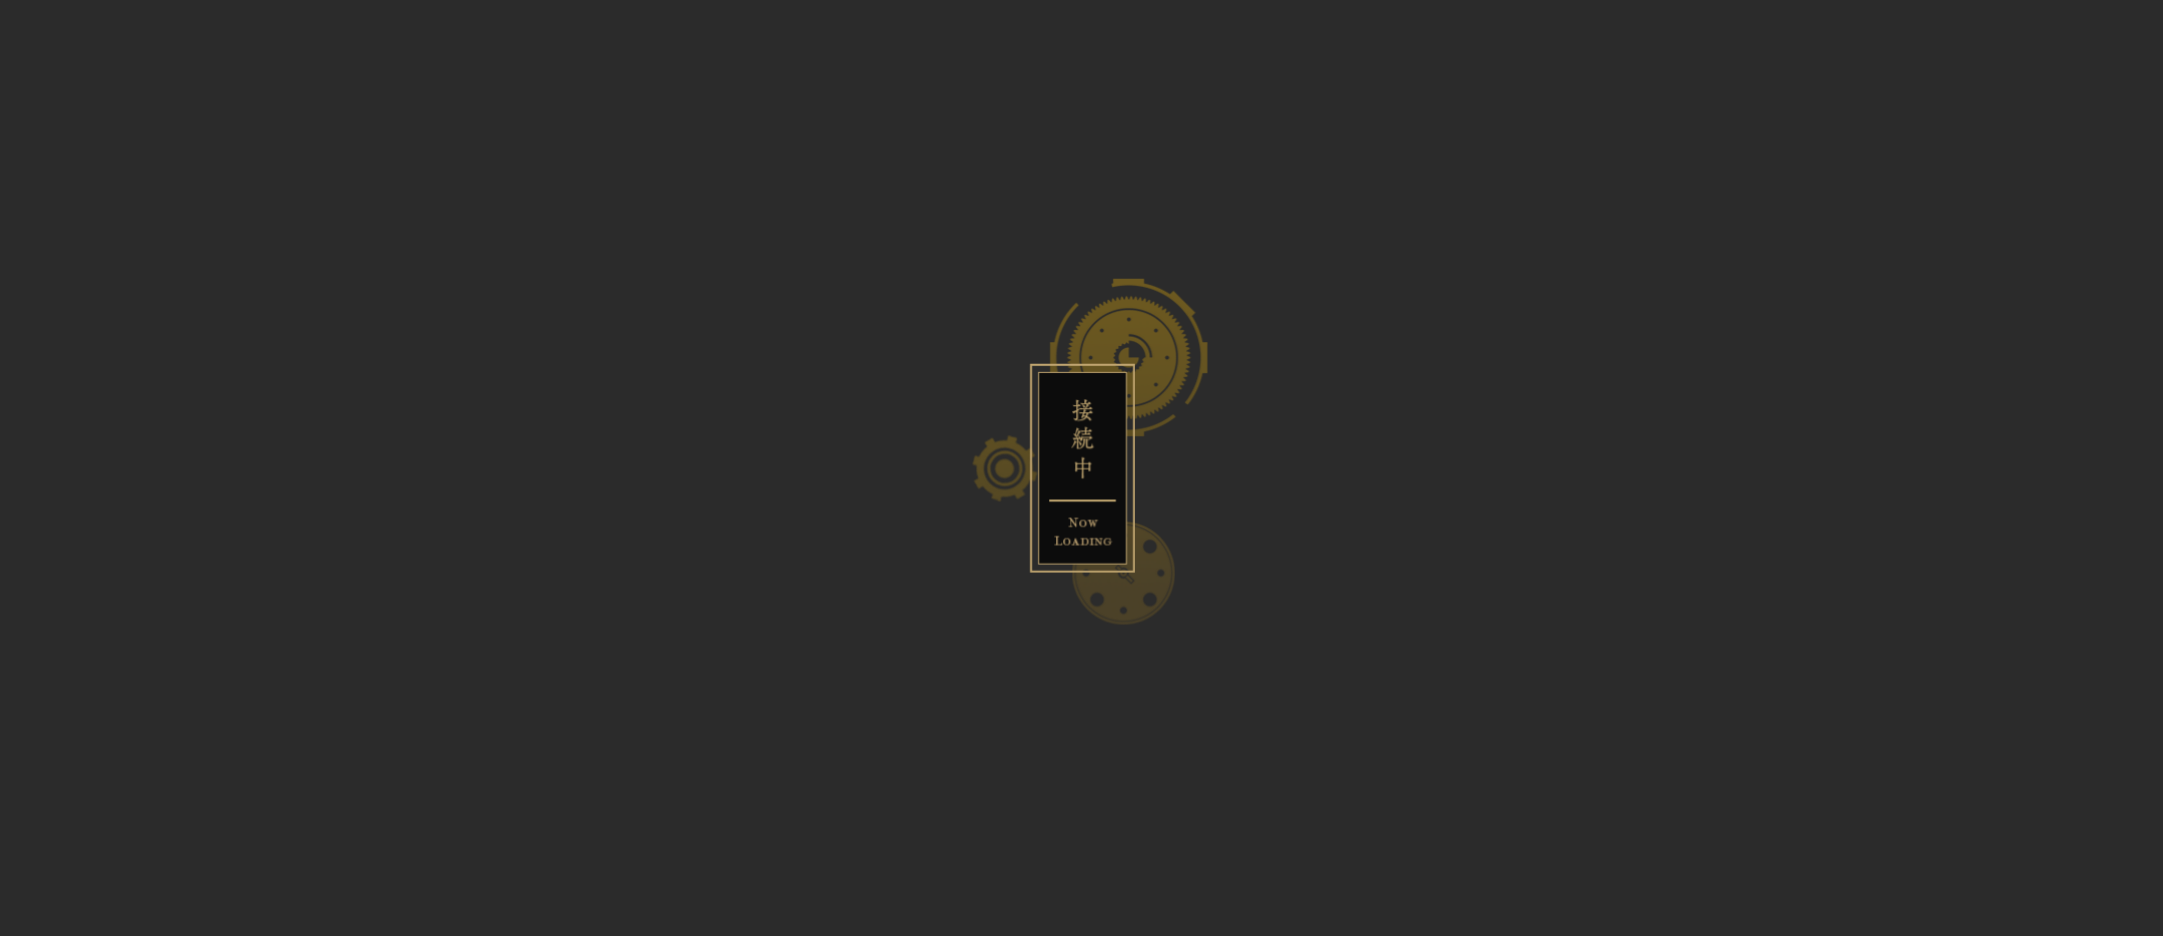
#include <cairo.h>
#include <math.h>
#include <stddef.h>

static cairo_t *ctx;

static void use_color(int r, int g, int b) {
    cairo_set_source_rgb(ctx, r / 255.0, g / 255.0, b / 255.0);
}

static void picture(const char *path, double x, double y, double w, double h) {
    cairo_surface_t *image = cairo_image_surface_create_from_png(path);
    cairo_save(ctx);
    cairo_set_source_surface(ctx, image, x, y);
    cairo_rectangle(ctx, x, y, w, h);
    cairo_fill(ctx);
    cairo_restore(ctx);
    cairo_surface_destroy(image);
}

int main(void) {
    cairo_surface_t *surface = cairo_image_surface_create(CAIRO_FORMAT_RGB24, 2163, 936);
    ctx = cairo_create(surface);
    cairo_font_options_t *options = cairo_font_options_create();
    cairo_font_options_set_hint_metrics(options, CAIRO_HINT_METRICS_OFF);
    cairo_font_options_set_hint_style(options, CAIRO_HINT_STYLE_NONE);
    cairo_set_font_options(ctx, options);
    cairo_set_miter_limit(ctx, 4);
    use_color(43, 43, 43);
    cairo_paint(ctx);
    picture("img1.png", 1049, 278, 159, 159);
    picture("img2.png", 972, 435, 66, 67);
    picture("img3.png", 1072, 521, 103, 104);
    picture("img4.png", 1029, 363, 106, 210);
    cairo_surface_write_to_png(surface, "result.png");
    cairo_font_options_destroy(options);
    cairo_destroy(ctx);
    cairo_surface_destroy(surface);
    return 0;
}
